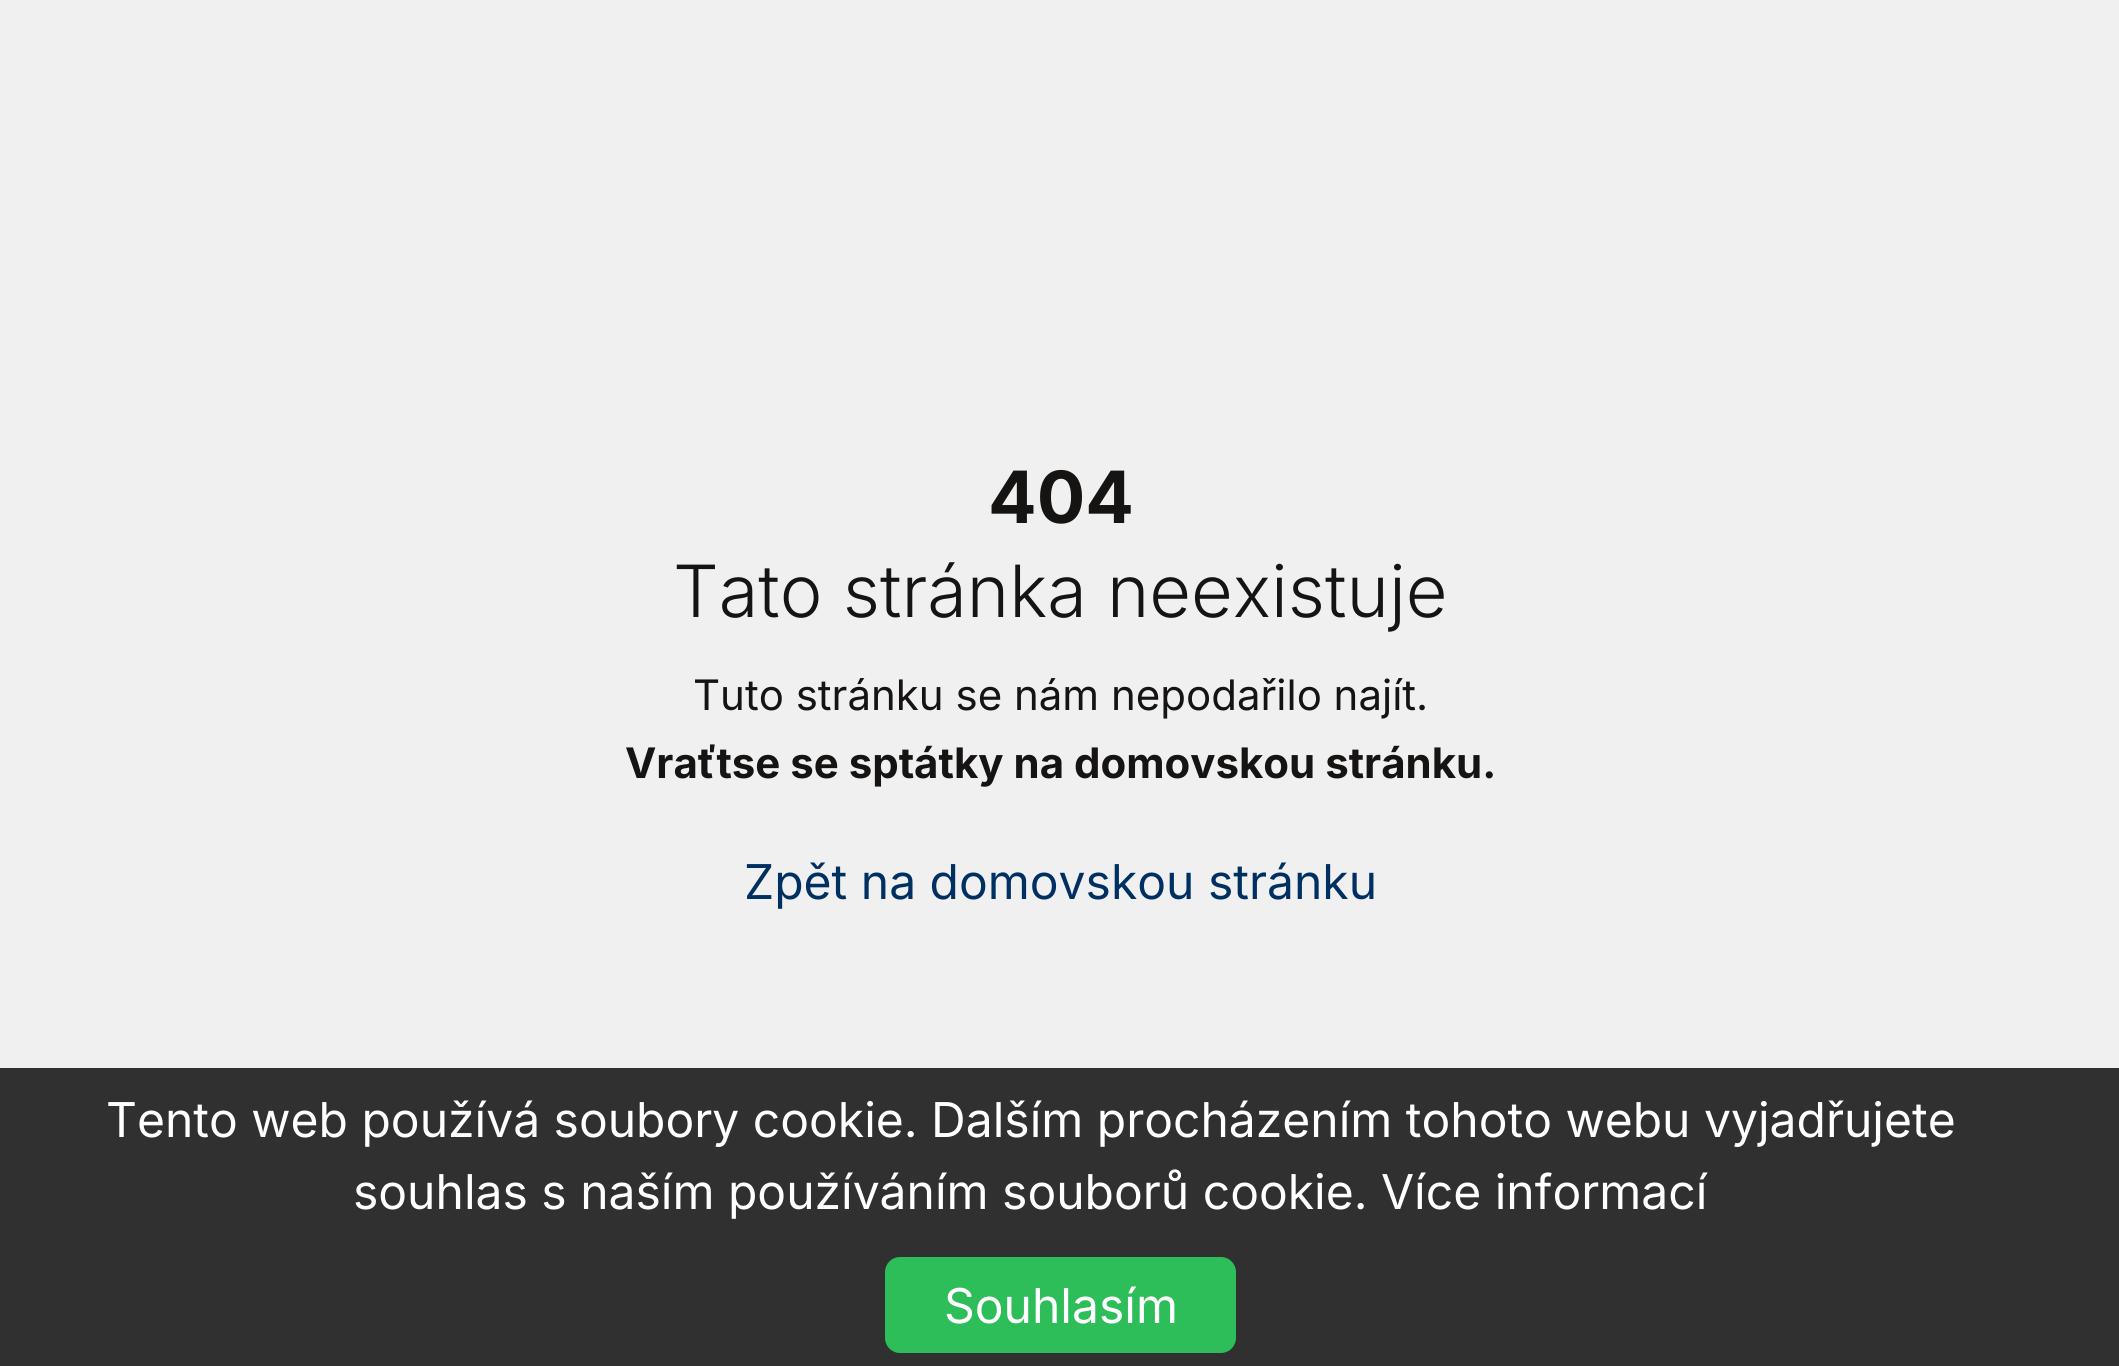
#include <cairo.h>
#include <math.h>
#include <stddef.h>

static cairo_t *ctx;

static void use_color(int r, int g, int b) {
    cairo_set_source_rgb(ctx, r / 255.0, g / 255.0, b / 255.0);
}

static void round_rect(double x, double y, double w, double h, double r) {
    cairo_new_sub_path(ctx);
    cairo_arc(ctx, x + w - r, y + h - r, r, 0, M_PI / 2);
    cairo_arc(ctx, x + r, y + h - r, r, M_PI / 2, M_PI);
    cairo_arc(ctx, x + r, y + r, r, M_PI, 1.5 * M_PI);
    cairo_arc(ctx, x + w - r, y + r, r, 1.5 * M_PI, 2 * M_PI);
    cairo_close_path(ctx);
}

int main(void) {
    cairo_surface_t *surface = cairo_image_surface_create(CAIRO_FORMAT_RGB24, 2119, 1366);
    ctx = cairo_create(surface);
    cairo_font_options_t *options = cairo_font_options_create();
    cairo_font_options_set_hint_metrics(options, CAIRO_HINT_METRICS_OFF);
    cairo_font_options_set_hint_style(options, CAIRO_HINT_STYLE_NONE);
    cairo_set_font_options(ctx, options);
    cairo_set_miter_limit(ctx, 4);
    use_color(240, 240, 240);
    cairo_paint(ctx);
    cairo_select_font_face(ctx, "Inter", CAIRO_FONT_SLANT_NORMAL, CAIRO_FONT_WEIGHT_BOLD);
    cairo_set_font_size(ctx, 72);
    use_color(22, 20, 18);
    cairo_move_to(ctx, 988, 523);
    cairo_show_text(ctx, "404");
    cairo_select_font_face(ctx, "Inter Light", CAIRO_FONT_SLANT_NORMAL, CAIRO_FONT_WEIGHT_NORMAL);
    cairo_move_to(ctx, 673, 617);
    cairo_show_text(ctx, "Tato stránka neexistuje");
    cairo_select_font_face(ctx, "Inter", CAIRO_FONT_SLANT_NORMAL, CAIRO_FONT_WEIGHT_NORMAL);
    cairo_set_font_size(ctx, 42);
    cairo_move_to(ctx, 693, 710);
    cairo_show_text(ctx, "Tuto stránku se nám nepodařilo najít.");
    cairo_select_font_face(ctx, "Inter", CAIRO_FONT_SLANT_NORMAL, CAIRO_FONT_WEIGHT_BOLD);
    cairo_move_to(ctx, 625, 778);
    cairo_show_text(ctx, "Vraťtse se sptátky na domovskou stránku.");
    cairo_select_font_face(ctx, "Inter", CAIRO_FONT_SLANT_NORMAL, CAIRO_FONT_WEIGHT_NORMAL);
    cairo_set_font_size(ctx, 48);
    use_color(0, 47, 98);
    cairo_move_to(ctx, 744, 899);
    cairo_show_text(ctx, "Zpět na domovskou stránku");
    use_color(48, 48, 48);
    cairo_rectangle(ctx, 0, 1068, 2119, 298);
    cairo_fill(ctx);
    use_color(255, 255, 255);
    cairo_move_to(ctx, 106, 1137);
    cairo_show_text(ctx, "Tento web používá soubory cookie. Dalším procházením tohoto webu vyjadřujete");
    cairo_move_to(ctx, 353, 1209);
    cairo_show_text(ctx, "souhlas s naším používáním souborů cookie. Více informací");
    use_color(45, 189, 89);
    round_rect(885, 1257, 351, 96, 15);
    cairo_fill(ctx);
    use_color(255, 255, 255);
    cairo_move_to(ctx, 944, 1323);
    cairo_show_text(ctx, "Souhlasím");
    cairo_surface_write_to_png(surface, "result.png");
    cairo_font_options_destroy(options);
    cairo_destroy(ctx);
    cairo_surface_destroy(surface);
    return 0;
}
